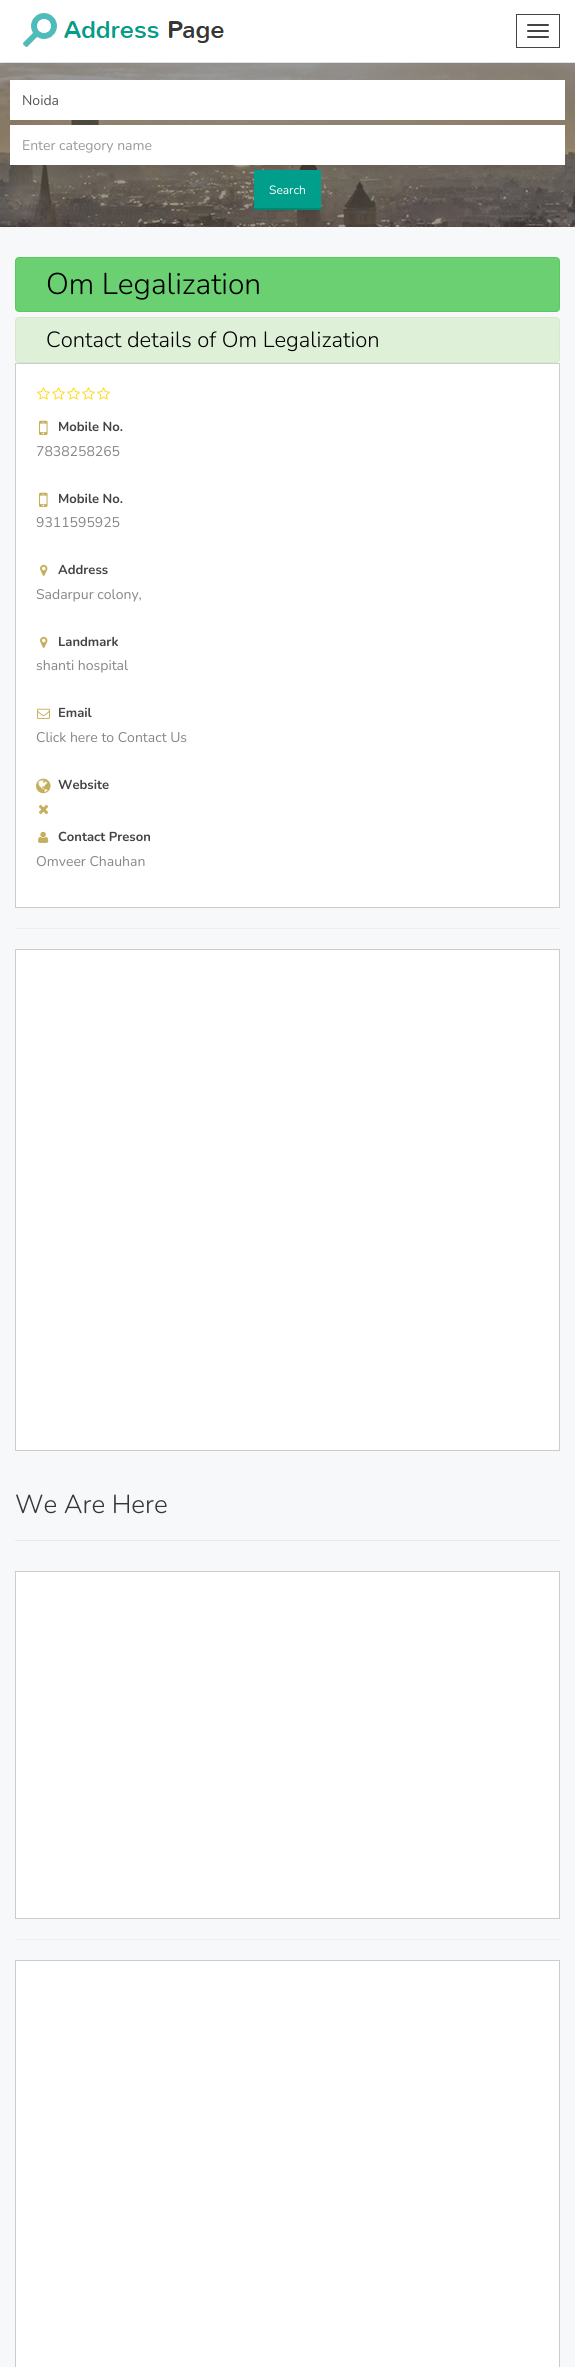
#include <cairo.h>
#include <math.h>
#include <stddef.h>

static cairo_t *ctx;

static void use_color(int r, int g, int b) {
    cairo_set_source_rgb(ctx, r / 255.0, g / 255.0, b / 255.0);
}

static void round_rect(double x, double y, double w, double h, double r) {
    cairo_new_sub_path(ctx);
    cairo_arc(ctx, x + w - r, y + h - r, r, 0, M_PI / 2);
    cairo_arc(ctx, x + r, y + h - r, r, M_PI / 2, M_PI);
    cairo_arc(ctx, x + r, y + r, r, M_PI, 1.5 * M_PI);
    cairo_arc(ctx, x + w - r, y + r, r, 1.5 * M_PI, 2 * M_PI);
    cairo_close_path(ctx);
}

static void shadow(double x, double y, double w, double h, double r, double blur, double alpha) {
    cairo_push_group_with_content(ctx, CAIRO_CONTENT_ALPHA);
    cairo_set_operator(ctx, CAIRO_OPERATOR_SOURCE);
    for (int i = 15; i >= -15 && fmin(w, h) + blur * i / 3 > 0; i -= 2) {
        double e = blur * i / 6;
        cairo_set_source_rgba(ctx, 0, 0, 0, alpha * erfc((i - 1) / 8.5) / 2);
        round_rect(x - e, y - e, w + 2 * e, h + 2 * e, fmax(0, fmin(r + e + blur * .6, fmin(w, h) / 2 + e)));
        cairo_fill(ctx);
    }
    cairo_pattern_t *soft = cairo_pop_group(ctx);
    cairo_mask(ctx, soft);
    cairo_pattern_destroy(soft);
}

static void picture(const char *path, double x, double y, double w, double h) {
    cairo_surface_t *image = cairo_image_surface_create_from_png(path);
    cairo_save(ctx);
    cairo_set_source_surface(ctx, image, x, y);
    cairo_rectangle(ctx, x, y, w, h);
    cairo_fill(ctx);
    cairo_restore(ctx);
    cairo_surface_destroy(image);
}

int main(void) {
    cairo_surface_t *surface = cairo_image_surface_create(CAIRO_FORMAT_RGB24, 575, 2367);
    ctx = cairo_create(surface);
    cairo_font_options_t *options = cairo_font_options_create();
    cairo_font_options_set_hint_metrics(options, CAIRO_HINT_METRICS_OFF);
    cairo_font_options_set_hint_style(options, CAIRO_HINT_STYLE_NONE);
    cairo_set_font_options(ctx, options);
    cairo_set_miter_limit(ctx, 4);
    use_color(247, 248, 249);
    cairo_paint(ctx);
    picture("img2.png", 0, 63, 575, 164);
    use_color(0, 0, 0);
    shadow(0, 1, 575, 62, 0, 0.5, 0.1);
    use_color(255, 255, 255);
    cairo_rectangle(ctx, 0, 0, 575, 62);
    cairo_fill(ctx);
    picture("img1.png", 23, 13, 201, 34);
    cairo_rectangle(ctx, 516.5, 14.5, 43, 33);
    use_color(68, 68, 68);
    cairo_set_line_width(ctx, 1);
    cairo_stroke(ctx);
    round_rect(527, 24, 22, 2, 1);
    cairo_fill(ctx);
    round_rect(527, 30, 22, 2, 1);
    cairo_fill(ctx);
    round_rect(527, 36, 22, 2, 1);
    cairo_fill(ctx);
    use_color(255, 255, 255);
    cairo_rectangle(ctx, 10, 80, 555, 40);
    cairo_fill(ctx);
    cairo_select_font_face(ctx, "Nunito", CAIRO_FONT_SLANT_NORMAL, CAIRO_FONT_WEIGHT_NORMAL);
    cairo_set_font_size(ctx, 14);
    use_color(85, 85, 85);
    cairo_move_to(ctx, 22, 105);
    cairo_show_text(ctx, "Noida");
    use_color(255, 255, 255);
    cairo_rectangle(ctx, 10, 125, 555, 40);
    cairo_fill(ctx);
    use_color(153, 153, 153);
    cairo_move_to(ctx, 22, 150);
    cairo_show_text(ctx, "Enter category name");
    use_color(0, 159, 139);
    cairo_rectangle(ctx, 254, 170, 67, 38);
    cairo_fill(ctx);
    cairo_set_font_size(ctx, 12);
    use_color(255, 255, 255);
    cairo_move_to(ctx, 269, 194);
    cairo_show_text(ctx, "Search");
    use_color(0, 135, 118);
    cairo_rectangle(ctx, 254, 208, 67, 2);
    cairo_fill(ctx);
    use_color(107, 208, 114);
    round_rect(15.5, 257.5, 544, 54, 3.5);
    cairo_fill_preserve(ctx);
    use_color(88, 202, 96);
    cairo_stroke(ctx);
    cairo_select_font_face(ctx, "Nunito Light", CAIRO_FONT_SLANT_NORMAL, CAIRO_FONT_WEIGHT_NORMAL);
    cairo_set_font_size(ctx, 30);
    use_color(0, 0, 0);
    cairo_move_to(ctx, 46, 294);
    cairo_show_text(ctx, "Om Legalization");
    use_color(223, 240, 216);
    round_rect(15.5, 317.5, 544, 45, 3.5);
    cairo_fill_preserve(ctx);
    use_color(214, 233, 198);
    cairo_stroke(ctx);
    cairo_set_font_size(ctx, 22);
    use_color(0, 0, 0);
    cairo_move_to(ctx, 46, 347);
    cairo_show_text(ctx, "Contact details of Om Legalization");
    use_color(255, 255, 255);
    cairo_rectangle(ctx, 15.5, 363.5, 544, 544);
    cairo_fill_preserve(ctx);
    use_color(204, 204, 204);
    cairo_stroke(ctx);
    picture("img3.png", 37, 387, 13, 13);
    picture("img3.png", 52, 387, 13, 13);
    picture("img3.png", 67, 387, 13, 13);
    picture("img3.png", 82, 387, 13, 13);
    picture("img3.png", 97, 387, 13, 13);
    picture("img4.png", 39, 420, 9, 15);
    cairo_select_font_face(ctx, "Nunito", CAIRO_FONT_SLANT_NORMAL, CAIRO_FONT_WEIGHT_BOLD);
    cairo_set_font_size(ctx, 13);
    use_color(68, 68, 68);
    cairo_move_to(ctx, 58, 431);
    cairo_show_text(ctx, "Mobile No.");
    cairo_select_font_face(ctx, "Nunito", CAIRO_FONT_SLANT_NORMAL, CAIRO_FONT_WEIGHT_NORMAL);
    cairo_set_font_size(ctx, 14);
    use_color(134, 134, 134);
    cairo_move_to(ctx, 36, 456);
    cairo_show_text(ctx, "7838258265");
    picture("img4.png", 39, 492, 9, 15);
    cairo_select_font_face(ctx, "Nunito", CAIRO_FONT_SLANT_NORMAL, CAIRO_FONT_WEIGHT_BOLD);
    cairo_set_font_size(ctx, 13);
    use_color(68, 68, 68);
    cairo_move_to(ctx, 58, 503);
    cairo_show_text(ctx, "Mobile No.");
    cairo_select_font_face(ctx, "Nunito", CAIRO_FONT_SLANT_NORMAL, CAIRO_FONT_WEIGHT_NORMAL);
    cairo_set_font_size(ctx, 14);
    use_color(134, 134, 134);
    cairo_move_to(ctx, 36, 527);
    cairo_show_text(ctx, "9311595925");
    picture("img5.png", 40, 564, 8, 12);
    cairo_select_font_face(ctx, "Nunito", CAIRO_FONT_SLANT_NORMAL, CAIRO_FONT_WEIGHT_BOLD);
    cairo_set_font_size(ctx, 13);
    use_color(68, 68, 68);
    cairo_move_to(ctx, 58, 574);
    cairo_show_text(ctx, "Address");
    cairo_select_font_face(ctx, "Nunito", CAIRO_FONT_SLANT_NORMAL, CAIRO_FONT_WEIGHT_NORMAL);
    cairo_set_font_size(ctx, 14);
    use_color(134, 134, 134);
    cairo_move_to(ctx, 36, 599);
    cairo_show_text(ctx, "Sadarpur colony,");
    picture("img5.png", 40, 636, 8, 12);
    cairo_select_font_face(ctx, "Nunito", CAIRO_FONT_SLANT_NORMAL, CAIRO_FONT_WEIGHT_BOLD);
    cairo_set_font_size(ctx, 13);
    use_color(68, 68, 68);
    cairo_move_to(ctx, 58, 646);
    cairo_show_text(ctx, "Landmark");
    cairo_select_font_face(ctx, "Nunito", CAIRO_FONT_SLANT_NORMAL, CAIRO_FONT_WEIGHT_NORMAL);
    cairo_set_font_size(ctx, 14);
    use_color(134, 134, 134);
    cairo_move_to(ctx, 36, 670);
    cairo_show_text(ctx, "shanti hospital");
    picture("img6.png", 37, 708, 13, 11);
    cairo_select_font_face(ctx, "Nunito", CAIRO_FONT_SLANT_NORMAL, CAIRO_FONT_WEIGHT_BOLD);
    cairo_set_font_size(ctx, 13);
    use_color(68, 68, 68);
    cairo_move_to(ctx, 58, 717);
    cairo_show_text(ctx, "Email");
    cairo_select_font_face(ctx, "Nunito", CAIRO_FONT_SLANT_NORMAL, CAIRO_FONT_WEIGHT_NORMAL);
    cairo_set_font_size(ctx, 14);
    use_color(134, 134, 134);
    cairo_move_to(ctx, 36, 742);
    cairo_show_text(ctx, "Click here to Contact Us");
    picture("img7.png", 36, 778, 15, 16);
    cairo_select_font_face(ctx, "Nunito", CAIRO_FONT_SLANT_NORMAL, CAIRO_FONT_WEIGHT_BOLD);
    cairo_set_font_size(ctx, 13);
    use_color(68, 68, 68);
    cairo_move_to(ctx, 58, 789);
    cairo_show_text(ctx, "Website");
    picture("img8.png", 38, 804, 11, 11);
    picture("img9.png", 38, 831, 11, 12);
    cairo_move_to(ctx, 58, 841);
    cairo_show_text(ctx, "Contact Preson");
    cairo_select_font_face(ctx, "Nunito", CAIRO_FONT_SLANT_NORMAL, CAIRO_FONT_WEIGHT_NORMAL);
    cairo_set_font_size(ctx, 14);
    use_color(134, 134, 134);
    cairo_move_to(ctx, 36, 866);
    cairo_show_text(ctx, "Omveer Chauhan");
    use_color(238, 238, 238);
    cairo_rectangle(ctx, 15, 928, 545, 1);
    cairo_fill(ctx);
    use_color(255, 255, 255);
    cairo_rectangle(ctx, 15.5, 949.5, 544, 501);
    cairo_fill_preserve(ctx);
    use_color(204, 204, 204);
    cairo_stroke(ctx);
    use_color(233, 233, 233);
    cairo_rectangle(ctx, 15, 1540, 545, 1);
    cairo_fill(ctx);
    cairo_select_font_face(ctx, "Nunito Light", CAIRO_FONT_SLANT_NORMAL, CAIRO_FONT_WEIGHT_NORMAL);
    cairo_set_font_size(ctx, 26);
    use_color(54, 54, 54);
    cairo_move_to(ctx, 15, 1513);
    cairo_show_text(ctx, "We Are Here");
    use_color(255, 255, 255);
    cairo_rectangle(ctx, 15.5, 1571.5, 544, 347);
    cairo_fill_preserve(ctx);
    use_color(204, 204, 204);
    cairo_stroke(ctx);
    use_color(238, 238, 238);
    cairo_rectangle(ctx, 15, 1939, 545, 1);
    cairo_fill(ctx);
    use_color(255, 255, 255);
    cairo_rectangle(ctx, 15.5, 1960.5, 544, 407);
    cairo_fill_preserve(ctx);
    use_color(204, 204, 204);
    cairo_stroke(ctx);
    cairo_surface_write_to_png(surface, "result.png");
    cairo_font_options_destroy(options);
    cairo_destroy(ctx);
    cairo_surface_destroy(surface);
    return 0;
}
